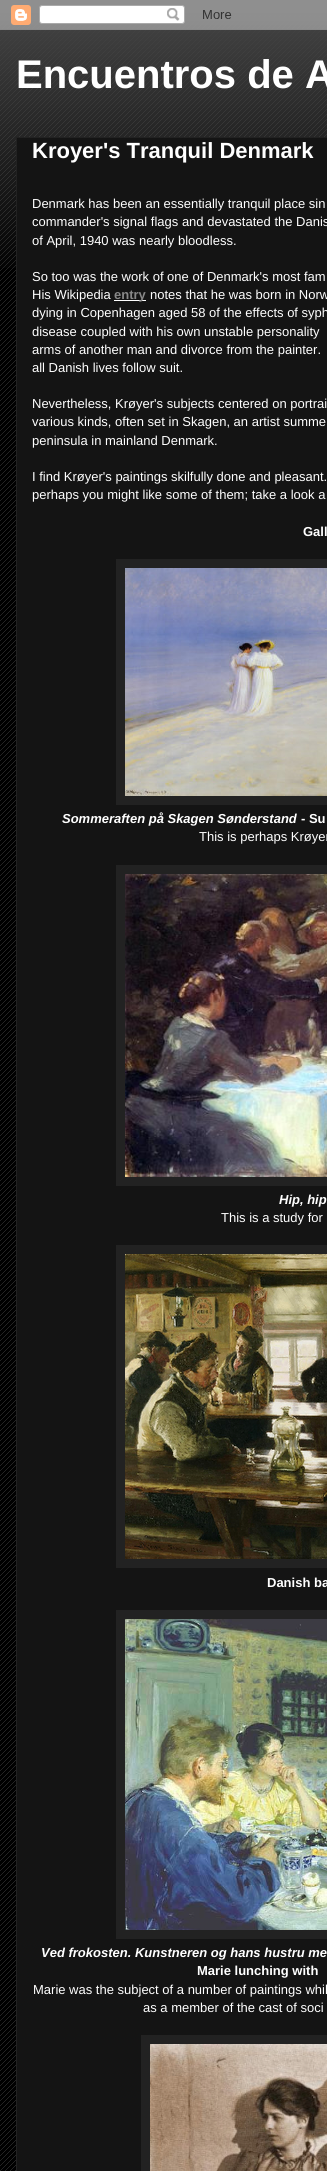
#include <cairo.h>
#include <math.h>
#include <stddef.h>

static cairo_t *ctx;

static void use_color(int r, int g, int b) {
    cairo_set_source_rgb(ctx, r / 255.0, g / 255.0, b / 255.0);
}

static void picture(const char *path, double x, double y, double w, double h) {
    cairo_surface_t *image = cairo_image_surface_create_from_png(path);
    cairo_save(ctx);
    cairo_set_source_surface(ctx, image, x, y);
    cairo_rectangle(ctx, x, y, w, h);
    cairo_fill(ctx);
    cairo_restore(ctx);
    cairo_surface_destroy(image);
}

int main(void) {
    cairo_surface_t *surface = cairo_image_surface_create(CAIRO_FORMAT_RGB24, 327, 2171);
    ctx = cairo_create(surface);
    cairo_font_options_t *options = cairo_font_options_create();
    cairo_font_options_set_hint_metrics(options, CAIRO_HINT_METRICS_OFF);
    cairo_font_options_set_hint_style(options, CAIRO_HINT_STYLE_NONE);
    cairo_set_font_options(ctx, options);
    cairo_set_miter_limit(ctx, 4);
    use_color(0, 0, 0);
    cairo_paint(ctx);
    picture("img1.png", 0, 13, 327, 2158);
    picture("img2.png", 0, 0, 327, 268);
    picture("img3.png", 0, 0, 327, 30);
    cairo_select_font_face(ctx, "Liberation Sans", CAIRO_FONT_SLANT_NORMAL, CAIRO_FONT_WEIGHT_BOLD);
    cairo_set_font_size(ctx, 40);
    use_color(255, 255, 255);
    cairo_move_to(ctx, 16, 88);
    cairo_show_text(ctx, "Encuentros de A");
    use_color(20, 20, 20);
    cairo_rectangle(ctx, 16.5, 137.5, 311, 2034);
    cairo_fill_preserve(ctx);
    use_color(34, 34, 34);
    cairo_set_line_width(ctx, 1);
    cairo_stroke(ctx);
    cairo_set_font_size(ctx, 22);
    use_color(255, 255, 255);
    cairo_move_to(ctx, 32, 158);
    cairo_show_text(ctx, "Kroyer's Tranquil Denmark");
    cairo_select_font_face(ctx, "Liberation Sans", CAIRO_FONT_SLANT_NORMAL, CAIRO_FONT_WEIGHT_NORMAL);
    cairo_set_font_size(ctx, 13);
    cairo_move_to(ctx, 32, 208);
    cairo_show_text(ctx, "Denmark has been an essentially tranquil place sin");
    cairo_move_to(ctx, 32, 226);
    cairo_show_text(ctx, "commander's signal flags and devastated the Danis");
    cairo_move_to(ctx, 32, 245);
    cairo_show_text(ctx, "of April, 1940 was nearly bloodless.");
    cairo_move_to(ctx, 32, 281);
    cairo_show_text(ctx, "So too was the work of one of Denmark's most fam");
    cairo_move_to(ctx, 32, 299);
    cairo_show_text(ctx, "His Wikipedia");
    cairo_rectangle(ctx, 114, 300, 32, 1);
    cairo_fill(ctx);
    cairo_select_font_face(ctx, "Liberation Sans", CAIRO_FONT_SLANT_NORMAL, CAIRO_FONT_WEIGHT_BOLD);
    use_color(136, 136, 136);
    cairo_move_to(ctx, 114, 299);
    cairo_show_text(ctx, "entry");
    cairo_select_font_face(ctx, "Liberation Sans", CAIRO_FONT_SLANT_NORMAL, CAIRO_FONT_WEIGHT_NORMAL);
    use_color(255, 255, 255);
    cairo_move_to(ctx, 150, 299);
    cairo_show_text(ctx, "notes that he was born in Norw");
    cairo_move_to(ctx, 32, 317);
    cairo_show_text(ctx, "dying in Copenhagen aged 58 of the effects of syph");
    cairo_move_to(ctx, 32, 336);
    cairo_show_text(ctx, "disease coupled with his own unstable personality");
    cairo_move_to(ctx, 32, 354);
    cairo_show_text(ctx, "arms of another man and divorce from the painter.");
    cairo_move_to(ctx, 32, 372);
    cairo_show_text(ctx, "all Danish lives follow suit.");
    cairo_move_to(ctx, 32, 408);
    cairo_show_text(ctx, "Nevertheless, Krøyer's subjects centered on portrai");
    cairo_move_to(ctx, 32, 426);
    cairo_show_text(ctx, "various kinds, often set in Skagen, an artist summe");
    cairo_move_to(ctx, 32, 445);
    cairo_show_text(ctx, "peninsula in mainland Denmark.");
    cairo_move_to(ctx, 32, 481);
    cairo_show_text(ctx, "I find Krøyer's paintings skilfully done and pleasant.");
    cairo_move_to(ctx, 32, 499);
    cairo_show_text(ctx, "perhaps you might like some of them; take a look a");
    cairo_select_font_face(ctx, "Liberation Sans", CAIRO_FONT_SLANT_NORMAL, CAIRO_FONT_WEIGHT_BOLD);
    cairo_move_to(ctx, 303, 536);
    cairo_show_text(ctx, "Gall");
    use_color(34, 34, 34);
    cairo_rectangle(ctx, 116, 559, 211, 246);
    cairo_fill(ctx);
    picture("img4.png", 125, 568, 202, 228);
    cairo_select_font_face(ctx, "Liberation Sans", CAIRO_FONT_SLANT_ITALIC, CAIRO_FONT_WEIGHT_BOLD);
    use_color(255, 255, 255);
    cairo_move_to(ctx, 62, 823);
    cairo_show_text(ctx, "Sommeraften på Skagen Sønderstand");
    cairo_select_font_face(ctx, "Liberation Sans", CAIRO_FONT_SLANT_NORMAL, CAIRO_FONT_WEIGHT_BOLD);
    cairo_move_to(ctx, 301, 823);
    cairo_show_text(ctx, "- Su");
    cairo_select_font_face(ctx, "Liberation Sans", CAIRO_FONT_SLANT_NORMAL, CAIRO_FONT_WEIGHT_NORMAL);
    cairo_move_to(ctx, 199, 841);
    cairo_show_text(ctx, "This is perhaps Krøyer");
    use_color(34, 34, 34);
    cairo_rectangle(ctx, 116, 865, 211, 321);
    cairo_fill(ctx);
    picture("img5.png", 125, 874, 202, 303);
    cairo_select_font_face(ctx, "Liberation Sans", CAIRO_FONT_SLANT_ITALIC, CAIRO_FONT_WEIGHT_BOLD);
    use_color(255, 255, 255);
    cairo_move_to(ctx, 279, 1204);
    cairo_show_text(ctx, "Hip, hip");
    cairo_select_font_face(ctx, "Liberation Sans", CAIRO_FONT_SLANT_NORMAL, CAIRO_FONT_WEIGHT_NORMAL);
    cairo_move_to(ctx, 221, 1222);
    cairo_show_text(ctx, "This is a study for");
    use_color(34, 34, 34);
    cairo_rectangle(ctx, 116, 1245, 211, 323);
    cairo_fill(ctx);
    picture("img6.png", 125, 1254, 202, 305);
    cairo_select_font_face(ctx, "Liberation Sans", CAIRO_FONT_SLANT_NORMAL, CAIRO_FONT_WEIGHT_BOLD);
    use_color(255, 255, 255);
    cairo_move_to(ctx, 267, 1587);
    cairo_show_text(ctx, "Danish ba");
    use_color(34, 34, 34);
    cairo_rectangle(ctx, 116, 1610, 211, 329);
    cairo_fill(ctx);
    picture("img7.png", 125, 1619, 202, 311);
    cairo_select_font_face(ctx, "Liberation Sans", CAIRO_FONT_SLANT_ITALIC, CAIRO_FONT_WEIGHT_BOLD);
    use_color(255, 255, 255);
    cairo_move_to(ctx, 41, 1957);
    cairo_show_text(ctx, "Ved frokosten. Kunstneren og hans hustru me");
    cairo_select_font_face(ctx, "Liberation Sans", CAIRO_FONT_SLANT_NORMAL, CAIRO_FONT_WEIGHT_BOLD);
    cairo_move_to(ctx, 197, 1975);
    cairo_show_text(ctx, "Marie lunching with");
    cairo_select_font_face(ctx, "Liberation Sans", CAIRO_FONT_SLANT_NORMAL, CAIRO_FONT_WEIGHT_NORMAL);
    cairo_move_to(ctx, 33, 1994);
    cairo_show_text(ctx, "Marie was the subject of a number of paintings whil");
    cairo_move_to(ctx, 143, 2012);
    cairo_show_text(ctx, "as a member of the cast of soci");
    use_color(34, 34, 34);
    cairo_rectangle(ctx, 141, 2035, 186, 136);
    cairo_fill(ctx);
    picture("img8.png", 150, 2044, 177, 127);
    cairo_surface_write_to_png(surface, "result.png");
    cairo_font_options_destroy(options);
    cairo_destroy(ctx);
    cairo_surface_destroy(surface);
    return 0;
}
